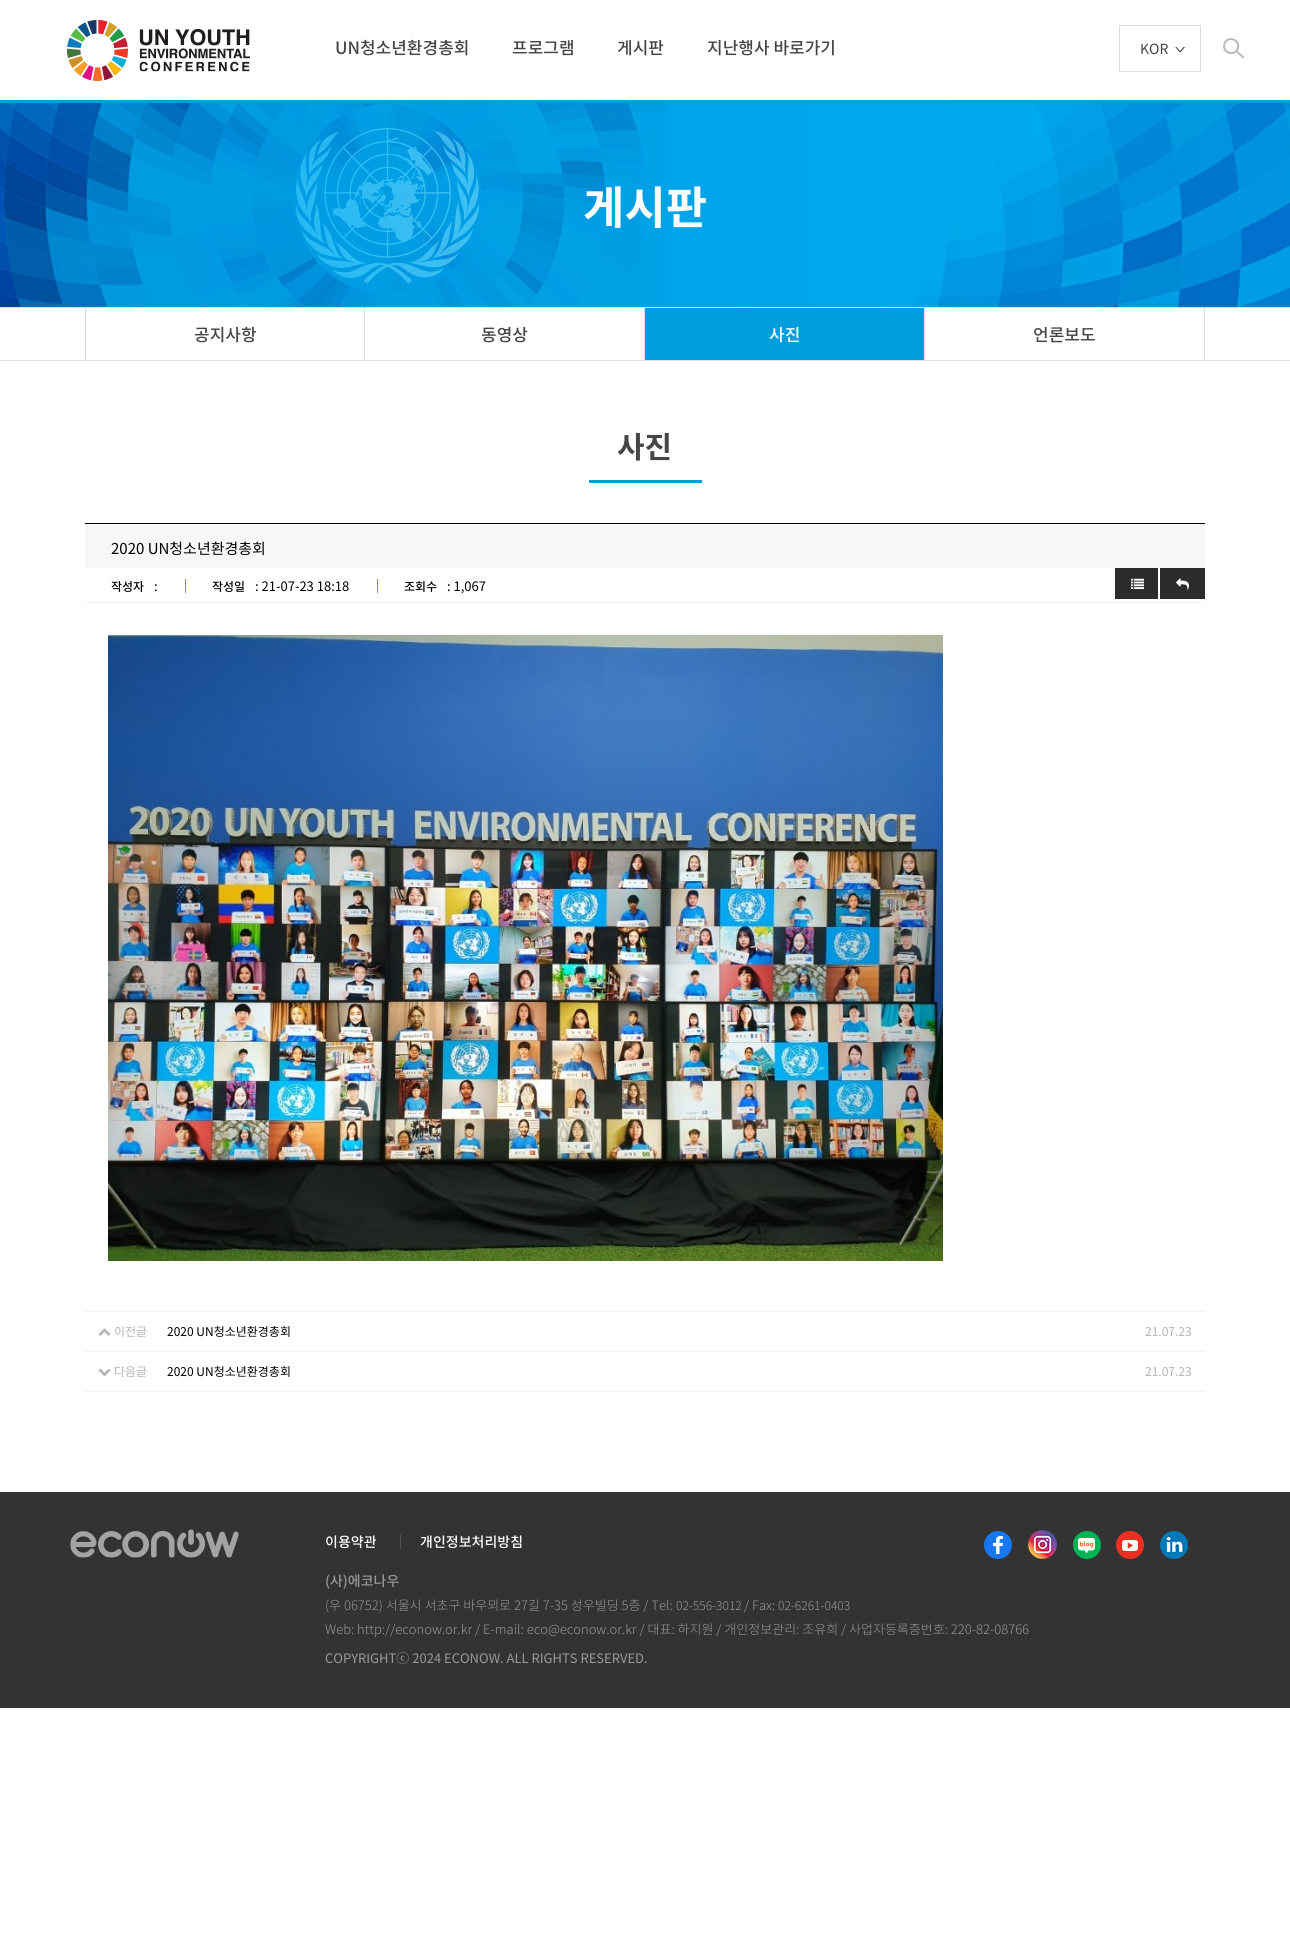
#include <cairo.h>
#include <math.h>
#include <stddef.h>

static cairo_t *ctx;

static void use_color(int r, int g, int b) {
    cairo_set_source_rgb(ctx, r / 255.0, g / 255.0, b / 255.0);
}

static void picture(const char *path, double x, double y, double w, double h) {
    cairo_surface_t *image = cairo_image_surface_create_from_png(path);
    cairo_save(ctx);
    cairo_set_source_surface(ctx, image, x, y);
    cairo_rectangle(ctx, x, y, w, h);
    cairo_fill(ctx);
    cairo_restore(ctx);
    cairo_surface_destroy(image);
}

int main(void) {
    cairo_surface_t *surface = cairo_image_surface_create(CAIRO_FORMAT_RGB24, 1290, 1949);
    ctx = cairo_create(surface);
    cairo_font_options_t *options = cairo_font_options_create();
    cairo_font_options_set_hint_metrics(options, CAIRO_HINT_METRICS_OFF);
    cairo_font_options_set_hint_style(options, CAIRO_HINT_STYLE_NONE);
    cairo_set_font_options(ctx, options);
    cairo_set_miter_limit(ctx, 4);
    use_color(255, 255, 255);
    cairo_paint(ctx);
    use_color(0, 159, 227);
    cairo_rectangle(ctx, 0, 100, 1290, 3);
    cairo_fill(ctx);
    picture("img1.png", 67, 20, 183, 61);
    cairo_select_font_face(ctx, "Noto Sans CJK KR Medium", CAIRO_FONT_SLANT_NORMAL, CAIRO_FONT_WEIGHT_NORMAL);
    cairo_set_font_size(ctx, 17);
    use_color(69, 69, 69);
    cairo_move_to(ctx, 335, 54);
    cairo_show_text(ctx, "UN청소년환경총회");
    cairo_move_to(ctx, 512, 54);
    cairo_show_text(ctx, "프로그램");
    cairo_move_to(ctx, 617, 54);
    cairo_show_text(ctx, "게시판");
    cairo_move_to(ctx, 707, 54);
    cairo_show_text(ctx, "지난행사 바로가기");
    cairo_rectangle(ctx, 1119.5, 25.5, 81, 46);
    use_color(220, 220, 220);
    cairo_set_line_width(ctx, 1);
    cairo_stroke(ctx);
    picture("img2.png", 1175, 47, 10, 6);
    cairo_select_font_face(ctx, "Noto Sans CJK KR", CAIRO_FONT_SLANT_NORMAL, CAIRO_FONT_WEIGHT_NORMAL);
    cairo_set_font_size(ctx, 14);
    use_color(69, 69, 69);
    cairo_move_to(ctx, 1140, 54);
    cairo_show_text(ctx, "KOR");
    picture("img3.png", 1223, 38, 21, 20);
    picture("img4.png", 0, 103, 1290, 204);
    cairo_select_font_face(ctx, "Noto Sans CJK KR", CAIRO_FONT_SLANT_NORMAL, CAIRO_FONT_WEIGHT_BOLD);
    cairo_set_font_size(ctx, 45);
    use_color(255, 255, 255);
    cairo_move_to(ctx, 583, 224);
    cairo_show_text(ctx, "게시판");
    use_color(220, 220, 220);
    cairo_rectangle(ctx, 0, 307, 1290, 1);
    cairo_fill(ctx);
    cairo_rectangle(ctx, 0, 360, 1290, 1);
    cairo_fill(ctx);
    cairo_rectangle(ctx, 364, 308, 1, 52);
    cairo_fill(ctx);
    cairo_rectangle(ctx, 85, 308, 1, 52);
    cairo_fill(ctx);
    cairo_select_font_face(ctx, "Noto Sans CJK KR Medium", CAIRO_FONT_SLANT_NORMAL, CAIRO_FONT_WEIGHT_NORMAL);
    cairo_set_font_size(ctx, 17);
    use_color(69, 69, 69);
    cairo_move_to(ctx, 194, 341);
    cairo_show_text(ctx, "공지사항");
    use_color(220, 220, 220);
    cairo_rectangle(ctx, 644, 308, 1, 52);
    cairo_fill(ctx);
    use_color(69, 69, 69);
    cairo_move_to(ctx, 481, 341);
    cairo_show_text(ctx, "동영상");
    use_color(220, 220, 220);
    cairo_rectangle(ctx, 924, 308, 1, 52);
    cairo_fill(ctx);
    use_color(1, 158, 219);
    cairo_rectangle(ctx, 645, 308, 279, 52);
    cairo_fill(ctx);
    use_color(255, 255, 255);
    cairo_move_to(ctx, 769, 341);
    cairo_show_text(ctx, "사진");
    use_color(220, 220, 220);
    cairo_rectangle(ctx, 1204, 308, 1, 52);
    cairo_fill(ctx);
    use_color(69, 69, 69);
    cairo_move_to(ctx, 1033, 341);
    cairo_show_text(ctx, "언론보도");
    cairo_select_font_face(ctx, "Noto Sans CJK KR", CAIRO_FONT_SLANT_NORMAL, CAIRO_FONT_WEIGHT_BOLD);
    cairo_set_font_size(ctx, 30);
    cairo_move_to(ctx, 617, 458);
    cairo_show_text(ctx, "사진");
    use_color(1, 158, 219);
    cairo_rectangle(ctx, 589, 480, 113, 3);
    cairo_fill(ctx);
    use_color(247, 247, 248);
    cairo_rectangle(ctx, 85, 524, 1120, 44);
    cairo_fill(ctx);
    use_color(0, 0, 0);
    cairo_rectangle(ctx, 85, 523, 1120, 1);
    cairo_fill(ctx);
    cairo_select_font_face(ctx, "Noto Sans CJK KR", CAIRO_FONT_SLANT_NORMAL, CAIRO_FONT_WEIGHT_NORMAL);
    cairo_set_font_size(ctx, 15);
    cairo_move_to(ctx, 111, 554);
    cairo_show_text(ctx, "2020 UN청소년환경총회");
    use_color(241, 241, 241);
    cairo_rectangle(ctx, 85, 602, 1120, 1);
    cairo_fill(ctx);
    cairo_select_font_face(ctx, "Noto Sans CJK KR Medium", CAIRO_FONT_SLANT_NORMAL, CAIRO_FONT_WEIGHT_NORMAL);
    cairo_set_font_size(ctx, 12);
    use_color(0, 0, 0);
    cairo_move_to(ctx, 111, 591);
    cairo_show_text(ctx, "작성자");
    cairo_select_font_face(ctx, "Noto Sans CJK KR", CAIRO_FONT_SLANT_NORMAL, CAIRO_FONT_WEIGHT_NORMAL);
    cairo_set_font_size(ctx, 13);
    cairo_move_to(ctx, 154, 591);
    cairo_show_text(ctx, ":");
    use_color(135, 158, 49);
    cairo_rectangle(ctx, 185, 579, 1, 14);
    cairo_fill(ctx);
    cairo_select_font_face(ctx, "Noto Sans CJK KR Medium", CAIRO_FONT_SLANT_NORMAL, CAIRO_FONT_WEIGHT_NORMAL);
    cairo_set_font_size(ctx, 12);
    use_color(0, 0, 0);
    cairo_move_to(ctx, 212, 591);
    cairo_show_text(ctx, "작성일");
    cairo_select_font_face(ctx, "Noto Sans CJK KR", CAIRO_FONT_SLANT_NORMAL, CAIRO_FONT_WEIGHT_NORMAL);
    cairo_set_font_size(ctx, 13);
    cairo_move_to(ctx, 255, 591);
    cairo_show_text(ctx, ": 21-07-23 18:18");
    use_color(135, 158, 49);
    cairo_rectangle(ctx, 377, 579, 1, 14);
    cairo_fill(ctx);
    cairo_select_font_face(ctx, "Noto Sans CJK KR Medium", CAIRO_FONT_SLANT_NORMAL, CAIRO_FONT_WEIGHT_NORMAL);
    cairo_set_font_size(ctx, 12);
    use_color(0, 0, 0);
    cairo_move_to(ctx, 404, 591);
    cairo_show_text(ctx, "조회수");
    cairo_select_font_face(ctx, "Noto Sans CJK KR", CAIRO_FONT_SLANT_NORMAL, CAIRO_FONT_WEIGHT_NORMAL);
    cairo_set_font_size(ctx, 13);
    cairo_move_to(ctx, 447, 591);
    cairo_show_text(ctx, ": 1,067");
    use_color(44, 44, 44);
    cairo_rectangle(ctx, 1115, 568, 43, 31);
    cairo_fill(ctx);
    picture("img5.png", 1131, 578, 13, 11);
    cairo_rectangle(ctx, 1160, 568, 45, 31);
    cairo_fill(ctx);
    picture("img6.png", 1176, 578, 13, 12);
    picture("img7.png", 108, 635, 835, 626);
    use_color(241, 241, 241);
    cairo_rectangle(ctx, 85, 1311, 1120, 1);
    cairo_fill(ctx);
    picture("img8.png", 98, 1328, 13, 8);
    cairo_set_font_size(ctx, 12);
    use_color(179, 179, 179);
    cairo_move_to(ctx, 114, 1336);
    cairo_show_text(ctx, "이전글");
    use_color(0, 0, 0);
    cairo_move_to(ctx, 167, 1336);
    cairo_show_text(ctx, "2020 UN청소년환경총회");
    use_color(179, 179, 179);
    cairo_move_to(ctx, 1145, 1336);
    cairo_show_text(ctx, "21.07.23");
    use_color(241, 241, 241);
    cairo_rectangle(ctx, 85, 1351, 1120, 1);
    cairo_fill(ctx);
    cairo_rectangle(ctx, 85, 1391, 1120, 1);
    cairo_fill(ctx);
    picture("img9.png", 98, 1368, 13, 9);
    use_color(179, 179, 179);
    cairo_move_to(ctx, 114, 1376);
    cairo_show_text(ctx, "다음글");
    use_color(0, 0, 0);
    cairo_move_to(ctx, 167, 1376);
    cairo_show_text(ctx, "2020 UN청소년환경총회");
    use_color(179, 179, 179);
    cairo_move_to(ctx, 1145, 1376);
    cairo_show_text(ctx, "21.07.23");
    use_color(51, 51, 51);
    cairo_rectangle(ctx, 0, 1492, 1290, 216);
    cairo_fill(ctx);
    picture("img10.png", 70, 1529, 169, 29);
    cairo_select_font_face(ctx, "Noto Sans CJK KR Medium", CAIRO_FONT_SLANT_NORMAL, CAIRO_FONT_WEIGHT_NORMAL);
    cairo_set_font_size(ctx, 14);
    use_color(255, 255, 255);
    cairo_move_to(ctx, 325, 1547);
    cairo_show_text(ctx, "이용약관");
    use_color(82, 82, 82);
    cairo_rectangle(ctx, 400, 1534, 1, 15);
    cairo_fill(ctx);
    use_color(255, 255, 255);
    cairo_move_to(ctx, 420, 1547);
    cairo_show_text(ctx, "개인정보처리방침");
    picture("img11.png", 984, 1531, 28, 28);
    picture("img12.png", 1028, 1530, 29, 29);
    picture("img13.png", 1073, 1531, 28, 28);
    picture("img14.png", 1116, 1531, 28, 28);
    picture("img15.png", 1160, 1531, 28, 28);
    use_color(153, 153, 153);
    cairo_move_to(ctx, 325, 1586);
    cairo_show_text(ctx, "(사)에코나우");
    cairo_select_font_face(ctx, "Noto Sans KR Light", CAIRO_FONT_SLANT_NORMAL, CAIRO_FONT_WEIGHT_NORMAL);
    cairo_set_font_size(ctx, 13);
    cairo_move_to(ctx, 325, 1610);
    cairo_show_text(ctx, "(우 06752) 서울시 서초구 바우뫼로 27길 7-35 성우빌딩 5층 / Tel:");
    cairo_set_font_size(ctx, 12);
    cairo_move_to(ctx, 676, 1610);
    cairo_show_text(ctx, "02-556-3012");
    cairo_set_font_size(ctx, 13);
    cairo_move_to(ctx, 744, 1610);
    cairo_show_text(ctx, "/ Fax:");
    cairo_set_font_size(ctx, 12);
    cairo_move_to(ctx, 778, 1610);
    cairo_show_text(ctx, "02-6261-0403");
    cairo_set_font_size(ctx, 13);
    cairo_move_to(ctx, 325, 1634);
    cairo_show_text(ctx, "Web: http://econow.or.kr / E-mail: eco@econow.or.kr / 대표: 하지원 / 개인정보관리: 조유희 / 사업자등록증번호: 220-82-08766");
    cairo_select_font_face(ctx, "Noto Sans CJK KR", CAIRO_FONT_SLANT_NORMAL, CAIRO_FONT_WEIGHT_NORMAL);
    cairo_move_to(ctx, 325, 1663);
    cairo_show_text(ctx, "COPYRIGHTⓒ 2024 ECONOW. ALL RIGHTS RESERVED.");
    cairo_surface_write_to_png(surface, "result.png");
    cairo_font_options_destroy(options);
    cairo_destroy(ctx);
    cairo_surface_destroy(surface);
    return 0;
}
